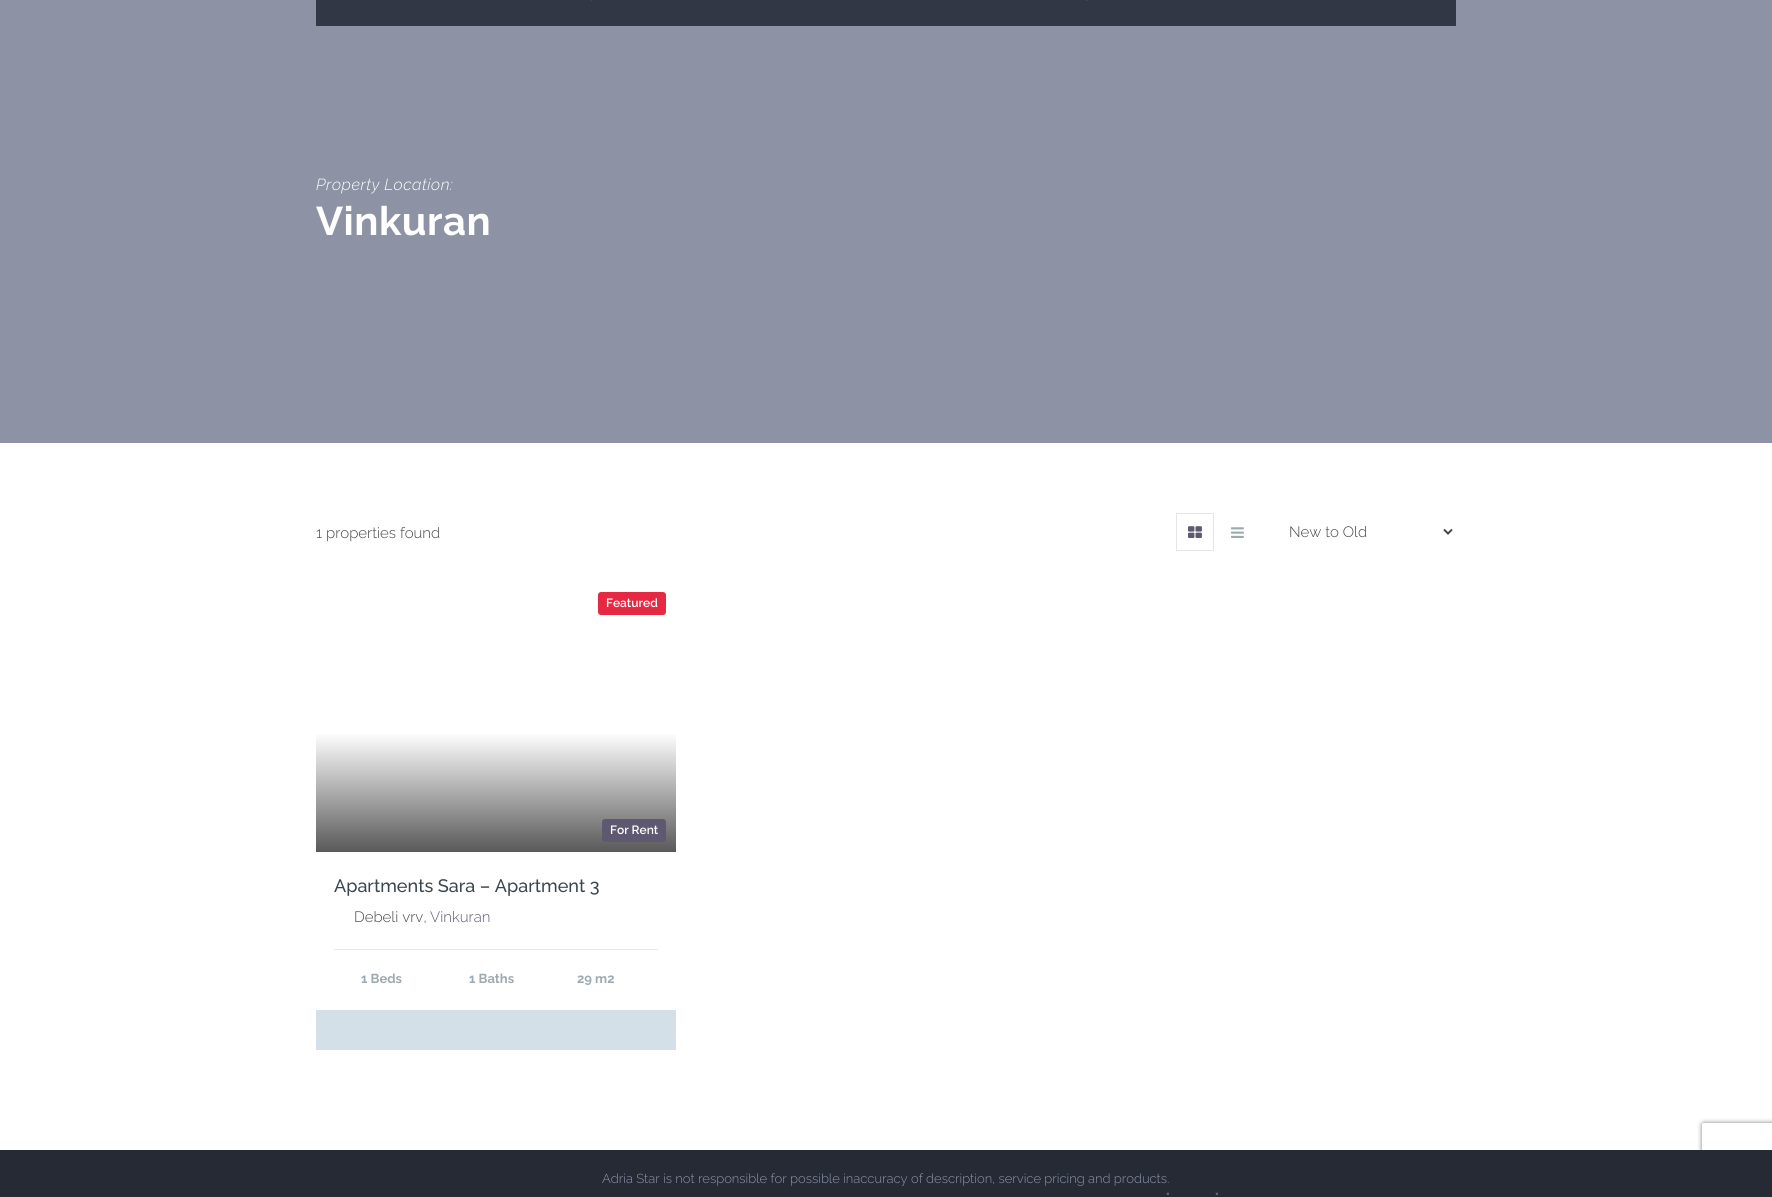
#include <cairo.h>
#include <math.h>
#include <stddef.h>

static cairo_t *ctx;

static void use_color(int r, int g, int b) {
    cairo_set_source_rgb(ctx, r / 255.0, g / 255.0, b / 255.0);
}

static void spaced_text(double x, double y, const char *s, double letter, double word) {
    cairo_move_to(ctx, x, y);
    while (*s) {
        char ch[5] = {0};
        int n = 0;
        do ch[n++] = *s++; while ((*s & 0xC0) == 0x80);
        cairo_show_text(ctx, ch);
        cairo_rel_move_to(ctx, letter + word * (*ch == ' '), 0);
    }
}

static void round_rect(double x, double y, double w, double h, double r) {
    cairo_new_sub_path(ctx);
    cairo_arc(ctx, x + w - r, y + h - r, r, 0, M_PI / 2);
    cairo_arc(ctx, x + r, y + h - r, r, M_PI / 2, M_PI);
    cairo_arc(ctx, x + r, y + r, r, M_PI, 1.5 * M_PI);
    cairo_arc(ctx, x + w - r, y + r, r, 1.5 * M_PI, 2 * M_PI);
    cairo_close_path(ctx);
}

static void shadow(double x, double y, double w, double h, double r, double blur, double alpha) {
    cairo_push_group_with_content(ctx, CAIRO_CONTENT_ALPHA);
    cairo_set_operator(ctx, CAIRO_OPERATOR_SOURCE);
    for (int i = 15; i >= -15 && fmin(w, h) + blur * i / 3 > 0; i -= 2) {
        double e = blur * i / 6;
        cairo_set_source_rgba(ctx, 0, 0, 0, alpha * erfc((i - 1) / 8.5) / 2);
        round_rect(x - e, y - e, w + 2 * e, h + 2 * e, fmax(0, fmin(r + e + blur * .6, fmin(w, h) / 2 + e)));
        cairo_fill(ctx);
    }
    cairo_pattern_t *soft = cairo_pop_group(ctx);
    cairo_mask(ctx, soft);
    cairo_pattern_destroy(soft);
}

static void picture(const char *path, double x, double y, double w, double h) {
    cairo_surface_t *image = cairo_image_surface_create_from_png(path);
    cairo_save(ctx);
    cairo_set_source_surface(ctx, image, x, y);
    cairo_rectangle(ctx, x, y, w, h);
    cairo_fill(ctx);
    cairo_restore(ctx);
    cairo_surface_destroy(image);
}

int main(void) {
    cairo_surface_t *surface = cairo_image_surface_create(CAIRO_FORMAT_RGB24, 1772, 1197);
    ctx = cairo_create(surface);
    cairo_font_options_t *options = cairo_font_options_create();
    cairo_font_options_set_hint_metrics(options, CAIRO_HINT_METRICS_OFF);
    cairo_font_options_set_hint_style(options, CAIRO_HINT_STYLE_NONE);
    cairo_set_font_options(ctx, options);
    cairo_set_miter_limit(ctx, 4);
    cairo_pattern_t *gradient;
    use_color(255, 255, 255);
    cairo_paint(ctx);
    use_color(141, 146, 164);
    cairo_rectangle(ctx, 0, 0, 1772, 443);
    cairo_fill(ctx);
    use_color(50, 55, 70);
    cairo_rectangle(ctx, 316, 0, 1140, 26);
    cairo_fill(ctx);
    picture("img1.png", 591, 0, 2, 1);
    picture("img1.png", 1086, 0, 2, 1);
    cairo_select_font_face(ctx, "Raleway Light", CAIRO_FONT_SLANT_ITALIC, CAIRO_FONT_WEIGHT_NORMAL);
    cairo_set_font_size(ctx, 16);
    use_color(255, 255, 255);
    spaced_text(316, 190, "Property Location:", 0.5, 0);
    cairo_select_font_face(ctx, "Raleway", CAIRO_FONT_SLANT_NORMAL, CAIRO_FONT_WEIGHT_BOLD);
    cairo_set_font_size(ctx, 40);
    spaced_text(316, 235, "Vinkuran", 0.5, 0);
    cairo_select_font_face(ctx, "Raleway Light", CAIRO_FONT_SLANT_NORMAL, CAIRO_FONT_WEIGHT_NORMAL);
    cairo_set_font_size(ctx, 15);
    use_color(70, 70, 70);
    cairo_move_to(ctx, 316, 538);
    cairo_show_text(ctx, "1 properties found");
    cairo_rectangle(ctx, 1176.5, 513.5, 37, 37);
    use_color(230, 230, 230);
    cairo_set_line_width(ctx, 1);
    cairo_stroke(ctx);
    picture("img2.png", 1188, 526, 14, 12);
    picture("img3.png", 1231, 527, 13, 11);
    cairo_new_path(ctx);
    cairo_move_to(ctx, 1444, 529.5);
    cairo_line_to(ctx, 1448, 533.5);
    cairo_line_to(ctx, 1452, 529.5);
    use_color(70, 70, 70);
    cairo_set_line_width(ctx, 2);
    cairo_stroke(ctx);
    cairo_move_to(ctx, 1289, 537);
    cairo_show_text(ctx, "New to Old");
    use_color(229, 41, 66);
    round_rect(598, 592, 68, 23, 3);
    cairo_fill(ctx);
    cairo_select_font_face(ctx, "Raleway SemiBold", CAIRO_FONT_SLANT_NORMAL, CAIRO_FONT_WEIGHT_NORMAL);
    cairo_set_font_size(ctx, 12);
    use_color(255, 255, 255);
    cairo_move_to(ctx, 606, 607);
    cairo_show_text(ctx, "Featured");
    gradient = cairo_pattern_create_linear(496, 732, 496, 852);
    cairo_pattern_add_color_stop_rgba(gradient, 0, 1, 1, 1, 1);
    cairo_pattern_add_color_stop_rgba(gradient, 1, 0.349, 0.349, 0.349, 1);
    cairo_set_source(ctx, gradient);
    cairo_pattern_destroy(gradient);
    cairo_rectangle(ctx, 316, 734, 360, 118);
    cairo_fill(ctx);
    use_color(94, 89, 113);
    round_rect(602, 819, 64, 23, 3);
    cairo_fill(ctx);
    use_color(255, 255, 255);
    cairo_move_to(ctx, 610, 834);
    cairo_show_text(ctx, "For Rent");
    cairo_select_font_face(ctx, "Raleway Medium", CAIRO_FONT_SLANT_NORMAL, CAIRO_FONT_WEIGHT_NORMAL);
    cairo_set_font_size(ctx, 18);
    use_color(58, 70, 78);
    cairo_move_to(ctx, 334, 892);
    cairo_show_text(ctx, "Apartments Sara – Apartment 3");
    cairo_select_font_face(ctx, "Raleway Light", CAIRO_FONT_SLANT_NORMAL, CAIRO_FONT_WEIGHT_NORMAL);
    cairo_set_font_size(ctx, 15);
    use_color(70, 70, 70);
    cairo_move_to(ctx, 354, 922);
    cairo_show_text(ctx, "Debeli vrv,");
    use_color(94, 89, 113);
    cairo_move_to(ctx, 430, 922);
    cairo_show_text(ctx, "Vinkuran");
    use_color(232, 232, 232);
    cairo_rectangle(ctx, 334, 949, 324, 1);
    cairo_fill(ctx);
    cairo_select_font_face(ctx, "Raleway", CAIRO_FONT_SLANT_NORMAL, CAIRO_FONT_WEIGHT_BOLD);
    cairo_set_font_size(ctx, 13);
    use_color(158, 170, 178);
    cairo_move_to(ctx, 361, 983);
    cairo_show_text(ctx, "1 Beds");
    cairo_move_to(ctx, 469, 983);
    cairo_show_text(ctx, "1 Baths");
    cairo_move_to(ctx, 577, 983);
    cairo_show_text(ctx, "29 m2");
    use_color(212, 224, 231);
    cairo_rectangle(ctx, 316, 1010, 360, 40);
    cairo_fill(ctx);
    cairo_save(ctx);
    cairo_set_fill_rule(ctx, CAIRO_FILL_RULE_EVEN_ODD);
    cairo_new_path(ctx);
    cairo_move_to(ctx, 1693, 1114);
    cairo_line_to(ctx, 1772, 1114);
    cairo_line_to(ctx, 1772, 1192);
    cairo_line_to(ctx, 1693, 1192);
    cairo_close_path(ctx);
    cairo_move_to(ctx, 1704, 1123);
    cairo_line_to(ctx, 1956, 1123);
    cairo_curve_to(ctx, 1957, 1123, 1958, 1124, 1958, 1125);
    cairo_line_to(ctx, 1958, 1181);
    cairo_curve_to(ctx, 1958, 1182, 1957, 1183, 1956, 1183);
    cairo_line_to(ctx, 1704, 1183);
    cairo_curve_to(ctx, 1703, 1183, 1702, 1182, 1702, 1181);
    cairo_line_to(ctx, 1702, 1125);
    cairo_curve_to(ctx, 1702, 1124, 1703, 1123, 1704, 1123);
    cairo_close_path(ctx);
    cairo_clip(ctx);
    use_color(128, 128, 128);
    shadow(1702, 1123, 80, 60, 2, 2.5, 1);
    cairo_restore(ctx);
    use_color(38, 42, 53);
    cairo_rectangle(ctx, 0, 1150, 1772, 47);
    cairo_fill(ctx);
    cairo_select_font_face(ctx, "Raleway Light", CAIRO_FONT_SLANT_NORMAL, CAIRO_FONT_WEIGHT_NORMAL);
    use_color(142, 149, 172);
    cairo_move_to(ctx, 602, 1183);
    cairo_show_text(ctx, "Adria Star is not responsible for possible inaccuracy of description, service pricing and products.");
    cairo_move_to(ctx, 1166, 1202);
    cairo_show_text(ctx, "\"");
    cairo_move_to(ctx, 1215, 1202);
    cairo_show_text(ctx, "\"");
    cairo_surface_write_to_png(surface, "result.png");
    cairo_font_options_destroy(options);
    cairo_destroy(ctx);
    cairo_surface_destroy(surface);
    return 0;
}
